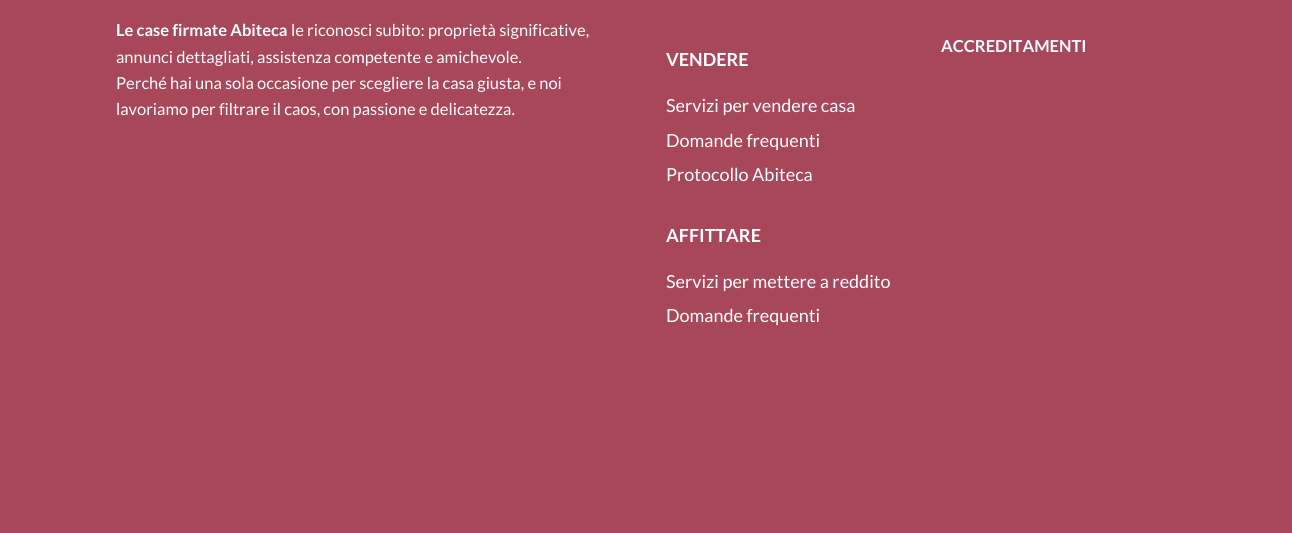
#include <cairo.h>
#include <math.h>
#include <stddef.h>

static cairo_t *ctx;

static void use_color(int r, int g, int b) {
    cairo_set_source_rgb(ctx, r / 255.0, g / 255.0, b / 255.0);
}

int main(void) {
    cairo_surface_t *surface = cairo_image_surface_create(CAIRO_FORMAT_RGB24, 1292, 533);
    ctx = cairo_create(surface);
    cairo_font_options_t *options = cairo_font_options_create();
    cairo_font_options_set_hint_metrics(options, CAIRO_HINT_METRICS_OFF);
    cairo_font_options_set_hint_style(options, CAIRO_HINT_STYLE_NONE);
    cairo_set_font_options(ctx, options);
    cairo_set_miter_limit(ctx, 4);
    use_color(168, 71, 90);
    cairo_paint(ctx);
    cairo_select_font_face(ctx, "Lato", CAIRO_FONT_SLANT_NORMAL, CAIRO_FONT_WEIGHT_BOLD);
    cairo_set_font_size(ctx, 16.5);
    use_color(255, 255, 255);
    cairo_move_to(ctx, 116, 36);
    cairo_show_text(ctx, "Le case firmate Abiteca");
    cairo_select_font_face(ctx, "Lato", CAIRO_FONT_SLANT_NORMAL, CAIRO_FONT_WEIGHT_NORMAL);
    cairo_move_to(ctx, 291, 36);
    cairo_show_text(ctx, "le riconosci subito: proprietà significative,");
    cairo_move_to(ctx, 116, 63);
    cairo_show_text(ctx, "annunci dettagliati, assistenza competente e amichevole.");
    cairo_move_to(ctx, 116, 89);
    cairo_show_text(ctx, "Perché hai una sola occasione per scegliere la casa giusta, e noi");
    cairo_move_to(ctx, 116, 115);
    cairo_show_text(ctx, "lavoriamo per filtrare il caos, con passione e delicatezza.");
    cairo_select_font_face(ctx, "Lato", CAIRO_FONT_SLANT_NORMAL, CAIRO_FONT_WEIGHT_BOLD);
    cairo_move_to(ctx, 941, 52);
    cairo_show_text(ctx, "ACCREDITAMENTI");
    cairo_set_font_size(ctx, 18);
    cairo_move_to(ctx, 666, 66);
    cairo_show_text(ctx, "VENDERE");
    cairo_select_font_face(ctx, "Lato", CAIRO_FONT_SLANT_NORMAL, CAIRO_FONT_WEIGHT_NORMAL);
    cairo_move_to(ctx, 666, 112);
    cairo_show_text(ctx, "Servizi per vendere casa");
    cairo_move_to(ctx, 666, 147);
    cairo_show_text(ctx, "Domande frequenti");
    cairo_move_to(ctx, 666, 181);
    cairo_show_text(ctx, "Protocollo Abiteca");
    cairo_select_font_face(ctx, "Lato", CAIRO_FONT_SLANT_NORMAL, CAIRO_FONT_WEIGHT_BOLD);
    cairo_move_to(ctx, 666, 242);
    cairo_show_text(ctx, "AFFITTARE");
    cairo_select_font_face(ctx, "Lato", CAIRO_FONT_SLANT_NORMAL, CAIRO_FONT_WEIGHT_NORMAL);
    cairo_move_to(ctx, 666, 288);
    cairo_show_text(ctx, "Servizi per mettere a reddito");
    cairo_move_to(ctx, 666, 322);
    cairo_show_text(ctx, "Domande frequenti");
    cairo_surface_write_to_png(surface, "result.png");
    cairo_font_options_destroy(options);
    cairo_destroy(ctx);
    cairo_surface_destroy(surface);
    return 0;
}
